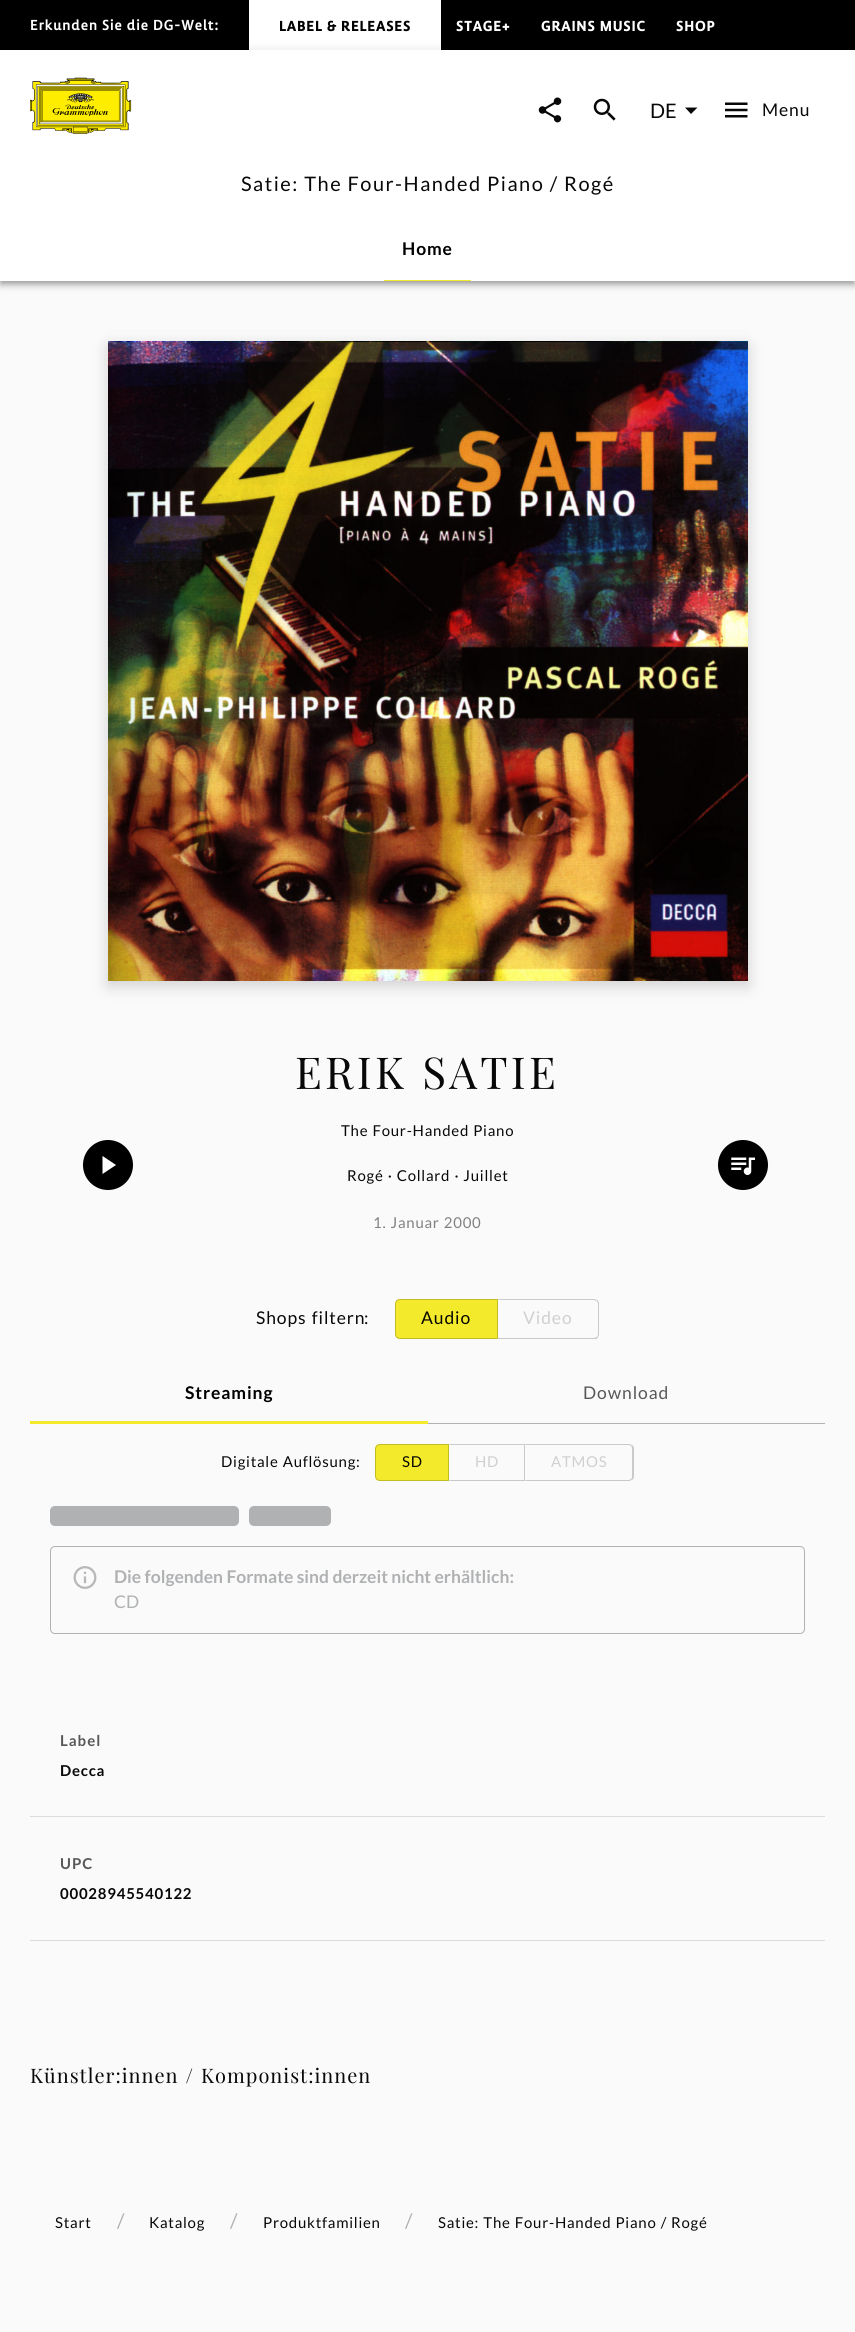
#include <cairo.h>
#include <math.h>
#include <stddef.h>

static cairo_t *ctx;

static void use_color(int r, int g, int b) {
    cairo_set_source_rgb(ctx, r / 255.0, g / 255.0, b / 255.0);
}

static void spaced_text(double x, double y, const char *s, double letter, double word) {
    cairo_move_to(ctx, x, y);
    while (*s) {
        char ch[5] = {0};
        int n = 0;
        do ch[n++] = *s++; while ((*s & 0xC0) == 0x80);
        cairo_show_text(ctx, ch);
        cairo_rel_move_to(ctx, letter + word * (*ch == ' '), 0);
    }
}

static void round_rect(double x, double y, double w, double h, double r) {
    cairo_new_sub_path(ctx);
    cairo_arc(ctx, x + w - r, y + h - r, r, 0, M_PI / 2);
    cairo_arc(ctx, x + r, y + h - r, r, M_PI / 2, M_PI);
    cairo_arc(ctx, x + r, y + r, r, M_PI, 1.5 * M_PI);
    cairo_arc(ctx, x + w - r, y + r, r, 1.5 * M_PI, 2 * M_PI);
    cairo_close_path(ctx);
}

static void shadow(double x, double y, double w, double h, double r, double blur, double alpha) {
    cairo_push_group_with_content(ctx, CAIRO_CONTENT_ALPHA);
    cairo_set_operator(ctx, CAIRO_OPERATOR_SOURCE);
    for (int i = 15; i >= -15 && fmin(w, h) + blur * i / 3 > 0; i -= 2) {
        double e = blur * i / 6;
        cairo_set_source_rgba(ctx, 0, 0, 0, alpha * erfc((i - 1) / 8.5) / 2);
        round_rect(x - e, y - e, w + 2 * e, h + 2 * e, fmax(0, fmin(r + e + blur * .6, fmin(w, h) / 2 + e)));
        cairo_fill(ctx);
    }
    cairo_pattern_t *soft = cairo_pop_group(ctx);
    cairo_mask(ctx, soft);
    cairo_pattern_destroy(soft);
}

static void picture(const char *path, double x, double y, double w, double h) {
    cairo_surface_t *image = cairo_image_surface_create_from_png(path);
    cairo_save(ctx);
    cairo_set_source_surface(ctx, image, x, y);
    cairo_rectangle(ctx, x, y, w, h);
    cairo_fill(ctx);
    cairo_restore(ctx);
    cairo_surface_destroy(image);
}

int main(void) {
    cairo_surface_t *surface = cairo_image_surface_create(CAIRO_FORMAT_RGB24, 855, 2332);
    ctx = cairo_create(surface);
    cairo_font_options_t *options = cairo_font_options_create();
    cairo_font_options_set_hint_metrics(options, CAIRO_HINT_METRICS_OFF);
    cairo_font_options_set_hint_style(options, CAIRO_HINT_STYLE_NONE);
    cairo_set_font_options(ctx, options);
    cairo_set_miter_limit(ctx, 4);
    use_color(250, 250, 250);
    cairo_paint(ctx);
    use_color(0, 0, 0);
    cairo_rectangle(ctx, 0, 0, 855, 50);
    cairo_fill(ctx);
    cairo_select_font_face(ctx, "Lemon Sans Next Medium", CAIRO_FONT_SLANT_NORMAL, CAIRO_FONT_WEIGHT_NORMAL);
    cairo_set_font_size(ctx, 15);
    use_color(255, 255, 255);
    spaced_text(30, 30, "Erkunden Sie die DG-Welt:", 0.75, 0);
    cairo_rectangle(ctx, 249, 0, 192, 50);
    cairo_fill(ctx);
    cairo_select_font_face(ctx, "Lemon Sans Next", CAIRO_FONT_SLANT_NORMAL, CAIRO_FONT_WEIGHT_BOLD);
    use_color(0, 0, 0);
    spaced_text(279, 31, "LABEL & RELEASES", 0.75, 0);
    use_color(255, 255, 255);
    spaced_text(456, 31, "STAGE+", 0.75, 0);
    spaced_text(541, 31, "GRAINS MUSIC", 0.75, 0);
    spaced_text(676, 31, "SHOP", 0.75, 0);
    use_color(0, 0, 0);
    shadow(0, 51, 855, 232, 0, 6, 0.12);
    shadow(0, 55, 855, 231, 0, 3, 0.14);
    shadow(1, 54, 853, 229, 0, 2.5, 0.2);
    use_color(255, 255, 255);
    cairo_rectangle(ctx, 0, 50, 855, 231);
    cairo_fill(ctx);
    picture("img1.png", 30, 77, 102, 57);
    picture("img2.png", 538, 97, 24, 26);
    picture("img3.png", 593, 98, 23, 23);
    cairo_select_font_face(ctx, "Lato", CAIRO_FONT_SLANT_NORMAL, CAIRO_FONT_WEIGHT_NORMAL);
    cairo_set_font_size(ctx, 20);
    use_color(8, 8, 8);
    cairo_move_to(ctx, 650, 118);
    cairo_show_text(ctx, "DE");
    cairo_new_path(ctx);
    cairo_move_to(ctx, 685, 107.5);
    cairo_line_to(ctx, 691, 114);
    cairo_line_to(ctx, 697.5, 107.5);
    cairo_close_path(ctx);
    cairo_fill(ctx);
    picture("img4.png", 725, 102, 23, 16);
    cairo_set_font_size(ctx, 17.5);
    spaced_text(762, 116, "Menu", 0.9, 0);
    cairo_set_font_size(ctx, 20);
    spaced_text(241, 191, "Satie: The Four-Handed Piano / Rogé", 1.5, 0);
    cairo_select_font_face(ctx, "Lato", CAIRO_FONT_SLANT_NORMAL, CAIRO_FONT_WEIGHT_BOLD);
    cairo_set_font_size(ctx, 17.5);
    use_color(0, 0, 0);
    spaced_text(402, 255, "Home", 0.9, 0);
    use_color(243, 234, 44);
    cairo_rectangle(ctx, 384, 280, 87, 1);
    cairo_fill(ctx);
    use_color(67, 67, 67);
    shadow(108, 346, 640, 640, 0, 7.5, 0.23);
    picture("img5.png", 108, 341, 640, 640);
    cairo_select_font_face(ctx, "Playfair Display", CAIRO_FONT_SLANT_NORMAL, CAIRO_FONT_WEIGHT_NORMAL);
    cairo_set_font_size(ctx, 44);
    use_color(8, 8, 8);
    spaced_text(295, 1089, "ERIK SATIE", 3.25, 1);
    cairo_select_font_face(ctx, "Lato", CAIRO_FONT_SLANT_NORMAL, CAIRO_FONT_WEIGHT_NORMAL);
    cairo_set_font_size(ctx, 15);
    spaced_text(341, 1136, "The Four-Handed Piano", 0.75, 0.5);
    use_color(0, 0, 0);
    shadow(83, 1140, 50, 50, 25, 0.5, 0.04);
    use_color(0, 0, 0);
    cairo_arc(ctx, 108, 1165, 25, 0, 2 * M_PI);
    cairo_fill(ctx);
    use_color(255, 255, 255);
    cairo_new_path(ctx);
    cairo_move_to(ctx, 102.5, 1156);
    cairo_line_to(ctx, 102.5, 1174);
    cairo_line_to(ctx, 116, 1165);
    cairo_close_path(ctx);
    cairo_fill(ctx);
    use_color(8, 8, 8);
    spaced_text(347, 1181, "Rogé · Collard · Juillet", 0.75, 0.5);
    use_color(0, 0, 0);
    shadow(718, 1140, 50, 50, 25, 0.5, 0.04);
    use_color(0, 0, 0);
    cairo_arc(ctx, 743, 1165, 25, 0, 2 * M_PI);
    cairo_fill(ctx);
    picture("img6.png", 731, 1157, 24, 18);
    use_color(129, 129, 129);
    spaced_text(373, 1228, "1. Januar 2000", 0.75, 0.5);
    cairo_set_font_size(ctx, 17.5);
    use_color(8, 8, 8);
    spaced_text(256, 1324, "Shops filtern", 0.9, 1);
    spaced_text(364, 1324, ":", 0.9, 0);
    use_color(243, 234, 44);
    cairo_new_path(ctx);
    cairo_move_to(ctx, 400, 1299);
    cairo_line_to(ctx, 498, 1299);
    cairo_line_to(ctx, 498, 1339);
    cairo_line_to(ctx, 400, 1339);
    cairo_curve_to(ctx, 397, 1339, 395, 1337, 395, 1334);
    cairo_line_to(ctx, 395, 1304);
    cairo_curve_to(ctx, 395, 1301, 397, 1299, 400, 1299);
    cairo_close_path(ctx);
    cairo_fill(ctx);
    cairo_new_path(ctx);
    cairo_move_to(ctx, 400, 1299.5);
    cairo_line_to(ctx, 497.5, 1299.5);
    cairo_line_to(ctx, 497.5, 1338.5);
    cairo_line_to(ctx, 400, 1338.5);
    cairo_curve_to(ctx, 397.5, 1338.5, 395.5, 1336.5, 395.5, 1334);
    cairo_line_to(ctx, 395.5, 1304);
    cairo_curve_to(ctx, 395.5, 1301.5, 397.5, 1299.5, 400, 1299.5);
    cairo_close_path(ctx);
    cairo_set_source_rgba(ctx, 0, 0.031, 0.051, 0.2);
    cairo_set_line_width(ctx, 1);
    cairo_stroke(ctx);
    use_color(7, 7, 1);
    spaced_text(421, 1324, "Audio", 0.9, 0);
    use_color(200, 202, 203);
    cairo_new_path(ctx);
    cairo_move_to(ctx, 498, 1299);
    cairo_line_to(ctx, 499, 1300);
    cairo_line_to(ctx, 594, 1300);
    cairo_line_to(ctx, 596, 1301);
    cairo_line_to(ctx, 597, 1300);
    cairo_line_to(ctx, 594, 1299);
    cairo_close_path(ctx);
    cairo_fill(ctx);
    cairo_new_path(ctx);
    cairo_move_to(ctx, 597.5, 1300);
    cairo_line_to(ctx, 599, 1302.5);
    cairo_line_to(ctx, 599, 1335.5);
    cairo_line_to(ctx, 597.5, 1337.5);
    cairo_line_to(ctx, 597, 1337);
    cairo_curve_to(ctx, 597.5, 1336, 598, 1335, 598, 1334);
    cairo_line_to(ctx, 598, 1304);
    cairo_curve_to(ctx, 598, 1303, 597.5, 1302, 596.5, 1301);
    cairo_close_path(ctx);
    cairo_fill(ctx);
    cairo_set_source_rgba(ctx, 0, 0.031, 0.051, 0.2);
    cairo_new_path(ctx);
    cairo_move_to(ctx, 498, 1339);
    cairo_line_to(ctx, 499, 1337);
    cairo_line_to(ctx, 499, 1338);
    cairo_line_to(ctx, 594, 1338);
    cairo_line_to(ctx, 597, 1337);
    cairo_line_to(ctx, 598, 1338);
    cairo_line_to(ctx, 596, 1339);
    cairo_close_path(ctx);
    cairo_fill(ctx);
    use_color(208, 208, 208);
    spaced_text(523, 1324, "Video", 0.9, 0);
    cairo_select_font_face(ctx, "Lato", CAIRO_FONT_SLANT_NORMAL, CAIRO_FONT_WEIGHT_BOLD);
    use_color(0, 0, 0);
    spaced_text(185, 1399, "Streaming", 0.9, 0);
    use_color(175, 177, 179);
    cairo_rectangle(ctx, 428, 1423, 397, 1);
    cairo_fill(ctx);
    cairo_select_font_face(ctx, "Lato", CAIRO_FONT_SLANT_NORMAL, CAIRO_FONT_WEIGHT_NORMAL);
    use_color(88, 88, 88);
    spaced_text(583, 1399, "Download", 0.9, 0);
    use_color(243, 234, 44);
    cairo_rectangle(ctx, 30, 1421, 398, 3);
    cairo_fill(ctx);
    cairo_set_font_size(ctx, 15);
    use_color(8, 8, 8);
    spaced_text(221, 1467, "Digitale Auflösung", 0.75, 0.5);
    spaced_text(356, 1467, ":", 0.75, 0);
    use_color(243, 234, 44);
    cairo_new_path(ctx);
    cairo_move_to(ctx, 380, 1444);
    cairo_line_to(ctx, 449, 1444);
    cairo_line_to(ctx, 449, 1481);
    cairo_line_to(ctx, 380, 1481);
    cairo_curve_to(ctx, 377, 1481, 375, 1479, 375, 1476);
    cairo_line_to(ctx, 375, 1449);
    cairo_curve_to(ctx, 375, 1446, 377, 1444, 380, 1444);
    cairo_close_path(ctx);
    cairo_fill(ctx);
    cairo_new_path(ctx);
    cairo_move_to(ctx, 380, 1444.5);
    cairo_line_to(ctx, 448.5, 1444.5);
    cairo_line_to(ctx, 448.5, 1480.5);
    cairo_line_to(ctx, 380, 1480.5);
    cairo_curve_to(ctx, 377.5, 1480.5, 375.5, 1478.5, 375.5, 1476);
    cairo_line_to(ctx, 375.5, 1449);
    cairo_curve_to(ctx, 375.5, 1446.5, 377.5, 1444.5, 380, 1444.5);
    cairo_close_path(ctx);
    cairo_set_source_rgba(ctx, 0, 0.031, 0.051, 0.2);
    cairo_stroke(ctx);
    use_color(7, 7, 1);
    spaced_text(402, 1467, "SD", 0.75, 0);
    use_color(200, 202, 203);
    cairo_new_path(ctx);
    cairo_move_to(ctx, 449, 1444);
    cairo_line_to(ctx, 525, 1444);
    cairo_line_to(ctx, 524, 1445);
    cairo_line_to(ctx, 450, 1445);
    cairo_close_path(ctx);
    cairo_fill(ctx);
    cairo_set_source_rgba(ctx, 0, 0.031, 0.051, 0.2);
    cairo_new_path(ctx);
    cairo_move_to(ctx, 525, 1444);
    cairo_line_to(ctx, 525, 1481);
    cairo_line_to(ctx, 524, 1480);
    cairo_line_to(ctx, 524, 1445);
    cairo_close_path(ctx);
    cairo_fill(ctx);
    cairo_new_path(ctx);
    cairo_move_to(ctx, 525, 1481);
    cairo_line_to(ctx, 449, 1481);
    cairo_line_to(ctx, 450, 1480);
    cairo_line_to(ctx, 524, 1480);
    cairo_close_path(ctx);
    cairo_fill(ctx);
    use_color(208, 208, 208);
    spaced_text(475, 1467, "HD", 0.75, 0);
    use_color(200, 202, 203);
    cairo_new_path(ctx);
    cairo_move_to(ctx, 632, 1445);
    cairo_line_to(ctx, 629, 1444);
    cairo_line_to(ctx, 525, 1444);
    cairo_line_to(ctx, 526, 1445);
    cairo_line_to(ctx, 629, 1445);
    cairo_line_to(ctx, 631, 1446);
    cairo_close_path(ctx);
    cairo_fill(ctx);
    cairo_new_path(ctx);
    cairo_move_to(ctx, 632.5, 1445);
    cairo_line_to(ctx, 634, 1447.5);
    cairo_line_to(ctx, 634, 1477.5);
    cairo_line_to(ctx, 632.5, 1480);
    cairo_line_to(ctx, 631, 1479);
    cairo_curve_to(ctx, 632, 1478, 632, 1477, 632, 1476);
    cairo_line_to(ctx, 632, 1449);
    cairo_curve_to(ctx, 632, 1448, 632, 1447, 631, 1446);
    cairo_close_path(ctx);
    cairo_fill(ctx);
    cairo_set_source_rgba(ctx, 0, 0.031, 0.051, 0.2);
    cairo_new_path(ctx);
    cairo_move_to(ctx, 632, 1480);
    cairo_line_to(ctx, 629, 1481);
    cairo_line_to(ctx, 525, 1481);
    cairo_line_to(ctx, 526, 1480);
    cairo_line_to(ctx, 629, 1480);
    cairo_line_to(ctx, 631, 1479);
    cairo_close_path(ctx);
    cairo_fill(ctx);
    use_color(208, 208, 208);
    spaced_text(551, 1467, "ATMOS", 0.75, 0);
    use_color(175, 177, 179);
    round_rect(50, 1506, 189, 20, 5);
    cairo_fill(ctx);
    round_rect(249, 1506, 82, 20, 5);
    cairo_fill(ctx);
    round_rect(50.5, 1546.5, 754, 87, 4.5);
    cairo_stroke(ctx);
    picture("img7.png", 73, 1566, 24, 23);
    cairo_select_font_face(ctx, "Lato", CAIRO_FONT_SLANT_NORMAL, CAIRO_FONT_WEIGHT_BOLD);
    cairo_set_font_size(ctx, 17.5);
    cairo_move_to(ctx, 114, 1583);
    cairo_show_text(ctx, "Die folgenden Formate sind derzeit nicht erhältlich:");
    cairo_select_font_face(ctx, "Lato", CAIRO_FONT_SLANT_NORMAL, CAIRO_FONT_WEIGHT_NORMAL);
    cairo_move_to(ctx, 114, 1608);
    cairo_show_text(ctx, "CD");
    cairo_select_font_face(ctx, "Lato", CAIRO_FONT_SLANT_NORMAL, CAIRO_FONT_WEIGHT_BOLD);
    cairo_set_font_size(ctx, 15);
    use_color(88, 88, 88);
    spaced_text(60, 1746, "Label", 1, 0);
    use_color(8, 8, 8);
    spaced_text(60, 1776, "Decca", 0.75, 0);
    use_color(220, 220, 220);
    cairo_rectangle(ctx, 30, 1816, 795, 1);
    cairo_fill(ctx);
    use_color(88, 88, 88);
    spaced_text(60, 1869, "UPC", 1, 0);
    use_color(8, 8, 8);
    spaced_text(60, 1899, "00028945540122", 0.75, 0);
    use_color(220, 220, 220);
    cairo_rectangle(ctx, 30, 1940, 795, 1);
    cairo_fill(ctx);
    cairo_select_font_face(ctx, "Playfair Display", CAIRO_FONT_SLANT_NORMAL, CAIRO_FONT_WEIGHT_NORMAL);
    cairo_set_font_size(ctx, 20);
    use_color(8, 8, 8);
    spaced_text(30, 2083, "Künstler:innen / Komponist:innen", 1, 1);
    cairo_select_font_face(ctx, "Lato", CAIRO_FONT_SLANT_NORMAL, CAIRO_FONT_WEIGHT_NORMAL);
    cairo_set_font_size(ctx, 15);
    spaced_text(55, 2228, "Start", 0.75, 0);
    cairo_set_font_size(ctx, 20);
    use_color(175, 177, 179);
    cairo_move_to(ctx, 117, 2228);
    cairo_show_text(ctx, "/");
    cairo_set_font_size(ctx, 15);
    use_color(8, 8, 8);
    spaced_text(149, 2228, "Katalog", 0.75, 0);
    cairo_set_font_size(ctx, 20);
    use_color(175, 177, 179);
    cairo_move_to(ctx, 230, 2228);
    cairo_show_text(ctx, "/");
    cairo_set_font_size(ctx, 15);
    use_color(8, 8, 8);
    spaced_text(263, 2228, "Produktfamilien", 0.75, 0);
    cairo_set_font_size(ctx, 20);
    use_color(175, 177, 179);
    cairo_move_to(ctx, 405, 2228);
    cairo_show_text(ctx, "/");
    cairo_set_font_size(ctx, 15);
    use_color(8, 8, 8);
    spaced_text(438, 2228, "Satie: The Four-Handed Piano / Rogé", 0.75, 0.5);
    cairo_surface_write_to_png(surface, "result.png");
    cairo_font_options_destroy(options);
    cairo_destroy(ctx);
    cairo_surface_destroy(surface);
    return 0;
}
